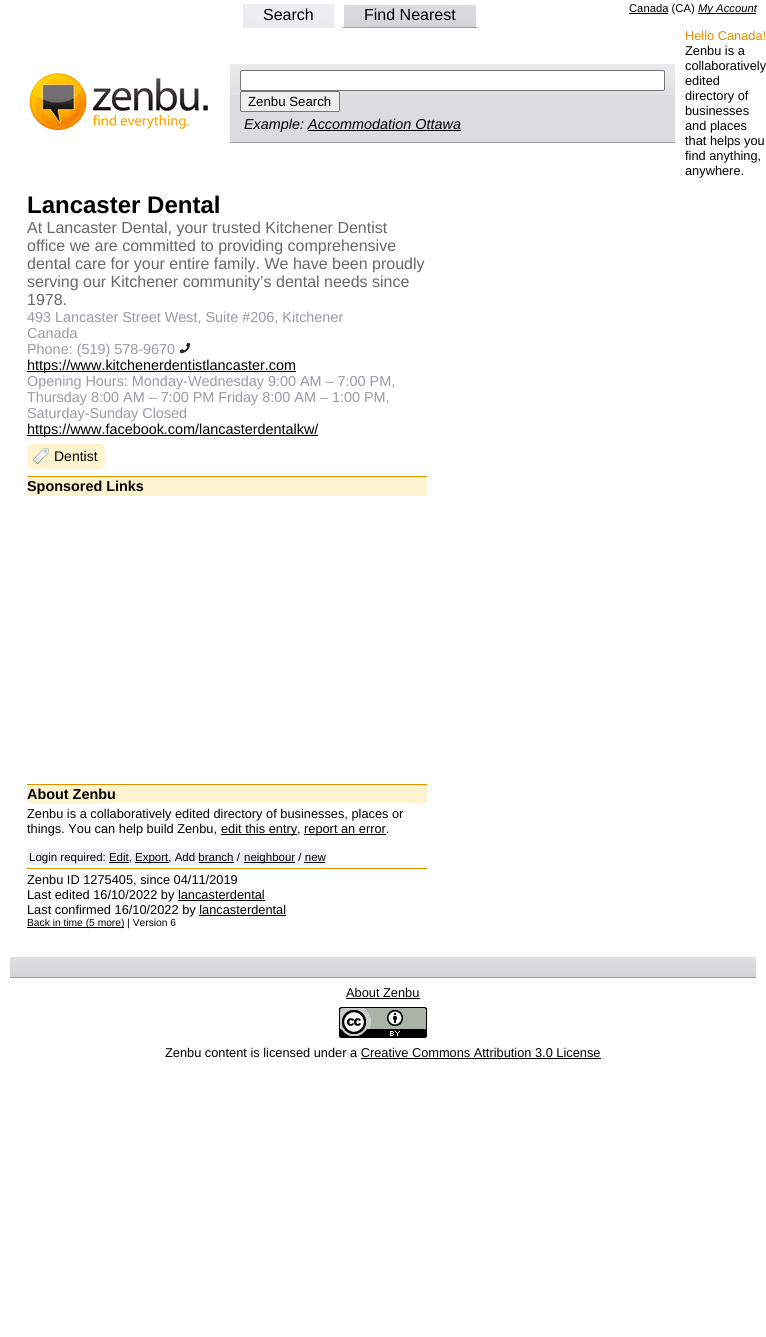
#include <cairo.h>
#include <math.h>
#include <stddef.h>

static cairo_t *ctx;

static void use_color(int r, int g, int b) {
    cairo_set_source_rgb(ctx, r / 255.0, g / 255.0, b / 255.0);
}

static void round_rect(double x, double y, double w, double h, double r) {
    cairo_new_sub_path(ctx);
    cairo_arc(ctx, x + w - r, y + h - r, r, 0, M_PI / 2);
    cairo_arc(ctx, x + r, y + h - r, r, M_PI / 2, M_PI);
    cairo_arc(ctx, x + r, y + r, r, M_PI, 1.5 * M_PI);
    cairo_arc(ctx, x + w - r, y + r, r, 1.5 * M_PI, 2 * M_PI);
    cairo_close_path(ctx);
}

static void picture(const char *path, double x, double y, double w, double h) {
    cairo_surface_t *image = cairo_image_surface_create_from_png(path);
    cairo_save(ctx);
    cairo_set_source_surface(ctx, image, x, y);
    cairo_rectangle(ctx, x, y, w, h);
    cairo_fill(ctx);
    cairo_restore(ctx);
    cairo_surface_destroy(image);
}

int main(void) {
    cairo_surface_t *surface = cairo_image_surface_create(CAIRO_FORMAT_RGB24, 766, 1337);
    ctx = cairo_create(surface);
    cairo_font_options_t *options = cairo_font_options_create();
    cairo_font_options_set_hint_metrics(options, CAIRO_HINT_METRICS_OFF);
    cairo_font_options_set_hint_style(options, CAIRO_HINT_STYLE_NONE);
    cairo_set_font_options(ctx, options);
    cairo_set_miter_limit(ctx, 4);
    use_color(255, 255, 255);
    cairo_paint(ctx);
    use_color(0, 0, 0);
    cairo_rectangle(ctx, 629, 13, 39, 1);
    cairo_fill(ctx);
    cairo_select_font_face(ctx, "Liberation Sans", CAIRO_FONT_SLANT_NORMAL, CAIRO_FONT_WEIGHT_NORMAL);
    cairo_set_font_size(ctx, 11.25);
    cairo_move_to(ctx, 629, 12);
    cairo_show_text(ctx, "Canada (CA)");
    cairo_rectangle(ctx, 698, 13, 58, 1);
    cairo_fill(ctx);
    cairo_select_font_face(ctx, "Liberation Sans", CAIRO_FONT_SLANT_ITALIC, CAIRO_FONT_WEIGHT_NORMAL);
    cairo_move_to(ctx, 698, 12);
    cairo_show_text(ctx, "My Account");
    picture("img1.png", 240, 4, 97, 24);
    picture("img2.png", 341, 5, 138, 23);
    cairo_select_font_face(ctx, "Liberation Sans", CAIRO_FONT_SLANT_NORMAL, CAIRO_FONT_WEIGHT_NORMAL);
    cairo_set_font_size(ctx, 16);
    cairo_move_to(ctx, 263, 20);
    cairo_show_text(ctx, "Search");
    use_color(255, 255, 255);
    cairo_new_path(ctx);
    cairo_move_to(ctx, 337, 2);
    cairo_line_to(ctx, 337, 28);
    cairo_line_to(ctx, 334, 27);
    cairo_line_to(ctx, 334, 2);
    cairo_close_path(ctx);
    cairo_fill(ctx);
    use_color(234, 235, 236);
    cairo_new_path(ctx);
    cairo_move_to(ctx, 337, 28);
    cairo_line_to(ctx, 240, 28);
    cairo_line_to(ctx, 243, 27);
    cairo_line_to(ctx, 334, 27);
    cairo_close_path(ctx);
    cairo_fill(ctx);
    use_color(255, 255, 255);
    cairo_new_path(ctx);
    cairo_move_to(ctx, 240, 28);
    cairo_line_to(ctx, 240, 2);
    cairo_line_to(ctx, 243, 2);
    cairo_line_to(ctx, 243, 27);
    cairo_close_path(ctx);
    cairo_fill(ctx);
    use_color(0, 0, 0);
    cairo_move_to(ctx, 364, 20);
    cairo_show_text(ctx, "Find Nearest");
    use_color(255, 255, 255);
    cairo_new_path(ctx);
    cairo_move_to(ctx, 479, 2);
    cairo_line_to(ctx, 479, 28);
    cairo_line_to(ctx, 476, 27);
    cairo_line_to(ctx, 476, 2);
    cairo_close_path(ctx);
    cairo_fill(ctx);
    use_color(155, 156, 159);
    cairo_new_path(ctx);
    cairo_move_to(ctx, 479, 28);
    cairo_line_to(ctx, 341, 28);
    cairo_line_to(ctx, 344, 27);
    cairo_line_to(ctx, 476, 27);
    cairo_close_path(ctx);
    cairo_fill(ctx);
    use_color(255, 255, 255);
    cairo_new_path(ctx);
    cairo_move_to(ctx, 341, 28);
    cairo_line_to(ctx, 341, 2);
    cairo_line_to(ctx, 344, 2);
    cairo_line_to(ctx, 344, 27);
    cairo_close_path(ctx);
    cairo_fill(ctx);
    picture("img3.png", 226, 133, 4, 1);
    picture("img4.png", 29, 73, 201, 60);
    use_color(219, 220, 223);
    cairo_rectangle(ctx, 230, 95, 445, 47);
    cairo_fill(ctx);
    picture("img5.png", 230, 64, 445, 31);
    use_color(155, 156, 159);
    cairo_rectangle(ctx, 230, 142, 445, 1);
    cairo_fill(ctx);
    use_color(255, 255, 255);
    round_rect(240.5, 70.5, 424, 20, 1.5);
    cairo_fill_preserve(ctx);
    use_color(118, 118, 118);
    cairo_set_line_width(ctx, 1);
    cairo_stroke(ctx);
    use_color(239, 239, 239);
    round_rect(240.5, 91.5, 99, 20, 1.5);
    cairo_fill_preserve(ctx);
    use_color(118, 118, 118);
    cairo_stroke(ctx);
    cairo_set_font_size(ctx, 13.25);
    use_color(0, 0, 0);
    cairo_move_to(ctx, 248, 106);
    cairo_show_text(ctx, "Zenbu Search");
    cairo_select_font_face(ctx, "Liberation Sans", CAIRO_FONT_SLANT_ITALIC, CAIRO_FONT_WEIGHT_NORMAL);
    cairo_set_font_size(ctx, 14.4);
    cairo_move_to(ctx, 244, 129);
    cairo_show_text(ctx, "Example: Accommodation Ottawa");
    cairo_rectangle(ctx, 308, 130, 153, 1);
    cairo_fill(ctx);
    cairo_select_font_face(ctx, "Liberation Sans", CAIRO_FONT_SLANT_NORMAL, CAIRO_FONT_WEIGHT_NORMAL);
    cairo_set_font_size(ctx, 12.8);
    use_color(231, 141, 0);
    cairo_move_to(ctx, 685, 40);
    cairo_show_text(ctx, "Hello Canada!");
    use_color(0, 0, 0);
    cairo_move_to(ctx, 685, 55);
    cairo_show_text(ctx, "Zenbu is a");
    cairo_move_to(ctx, 685, 70);
    cairo_show_text(ctx, "collaboratively");
    cairo_move_to(ctx, 685, 85);
    cairo_show_text(ctx, "edited");
    cairo_move_to(ctx, 685, 100);
    cairo_show_text(ctx, "directory of");
    cairo_move_to(ctx, 685, 115);
    cairo_show_text(ctx, "businesses");
    cairo_move_to(ctx, 685, 130);
    cairo_show_text(ctx, "and places");
    cairo_move_to(ctx, 685, 145);
    cairo_show_text(ctx, "that helps you");
    cairo_move_to(ctx, 685, 160);
    cairo_show_text(ctx, "find anything,");
    cairo_move_to(ctx, 685, 175);
    cairo_show_text(ctx, "anywhere.");
    cairo_select_font_face(ctx, "Liberation Sans", CAIRO_FONT_SLANT_NORMAL, CAIRO_FONT_WEIGHT_BOLD);
    cairo_set_font_size(ctx, 24);
    cairo_move_to(ctx, 27, 213);
    cairo_show_text(ctx, "Lancaster Dental");
    cairo_select_font_face(ctx, "Liberation Sans", CAIRO_FONT_SLANT_NORMAL, CAIRO_FONT_WEIGHT_NORMAL);
    cairo_set_font_size(ctx, 16);
    use_color(102, 103, 104);
    cairo_move_to(ctx, 27, 233);
    cairo_show_text(ctx, "At Lancaster Dental, your trusted Kitchener Dentist");
    cairo_move_to(ctx, 27, 251);
    cairo_show_text(ctx, "office we are committed to providing comprehensive");
    cairo_move_to(ctx, 27, 269);
    cairo_show_text(ctx, "dental care for your entire family. We have been proudly");
    cairo_move_to(ctx, 27, 287);
    cairo_show_text(ctx, "serving our Kitchener community’s dental needs since");
    cairo_move_to(ctx, 27, 305);
    cairo_show_text(ctx, "1978.");
    cairo_set_font_size(ctx, 14.4);
    use_color(153, 154, 163);
    cairo_move_to(ctx, 27, 322);
    cairo_show_text(ctx, "493 Lancaster Street West, Suite #206, Kitchener");
    cairo_move_to(ctx, 27, 338);
    cairo_show_text(ctx, "Canada");
    cairo_move_to(ctx, 27, 354);
    cairo_show_text(ctx, "Phone: (519) 578-9670");
    picture("img6.png", 179, 342, 12, 12);
    use_color(0, 0, 0);
    cairo_rectangle(ctx, 27, 371, 269, 1);
    cairo_fill(ctx);
    cairo_move_to(ctx, 27, 370);
    cairo_show_text(ctx, "https://www.kitchenerdentistlancaster.com");
    use_color(153, 154, 163);
    cairo_move_to(ctx, 27, 386);
    cairo_show_text(ctx, "Opening Hours: Monday-Wednesday 9:00 AM – 7:00 PM,");
    cairo_move_to(ctx, 27, 402);
    cairo_show_text(ctx, "Thursday 8:00 AM – 7:00 PM Friday 8:00 AM – 1:00 PM,");
    cairo_move_to(ctx, 27, 418);
    cairo_show_text(ctx, "Saturday-Sunday Closed");
    use_color(0, 0, 0);
    cairo_rectangle(ctx, 27, 435, 291, 1);
    cairo_fill(ctx);
    cairo_move_to(ctx, 27, 434);
    cairo_show_text(ctx, "https://www.facebook.com/lancasterdentalkw/");
    use_color(255, 244, 207);
    round_rect(27, 444, 78, 25, 5);
    cairo_fill(ctx);
    picture("img7.png", 33, 448, 16, 16);
    cairo_set_font_size(ctx, 14);
    use_color(0, 0, 0);
    cairo_move_to(ctx, 54, 461);
    cairo_show_text(ctx, "Dentist");
    use_color(255, 244, 207);
    cairo_rectangle(ctx, 27, 477, 400, 19);
    cairo_fill(ctx);
    use_color(231, 141, 0);
    cairo_rectangle(ctx, 27, 476, 400, 1);
    cairo_fill(ctx);
    cairo_select_font_face(ctx, "Liberation Sans", CAIRO_FONT_SLANT_NORMAL, CAIRO_FONT_WEIGHT_BOLD);
    cairo_set_font_size(ctx, 14.4);
    use_color(0, 0, 0);
    cairo_move_to(ctx, 27, 491);
    cairo_show_text(ctx, "Sponsored Links");
    use_color(255, 244, 207);
    cairo_rectangle(ctx, 27, 785, 400, 18);
    cairo_fill(ctx);
    use_color(231, 141, 0);
    cairo_rectangle(ctx, 27, 784, 400, 1);
    cairo_fill(ctx);
    use_color(0, 0, 0);
    cairo_move_to(ctx, 27, 799);
    cairo_show_text(ctx, "About Zenbu");
    cairo_select_font_face(ctx, "Liberation Sans", CAIRO_FONT_SLANT_NORMAL, CAIRO_FONT_WEIGHT_NORMAL);
    cairo_set_font_size(ctx, 12.8);
    cairo_move_to(ctx, 27, 818);
    cairo_show_text(ctx, "Zenbu is a collaboratively edited directory of businesses, places or");
    cairo_move_to(ctx, 27, 833);
    cairo_show_text(ctx, "things. You can help build Zenbu,");
    cairo_rectangle(ctx, 221, 834, 76, 1);
    cairo_fill(ctx);
    cairo_move_to(ctx, 221, 833);
    cairo_show_text(ctx, "edit this entry,");
    cairo_rectangle(ctx, 304, 834, 82, 1);
    cairo_fill(ctx);
    cairo_move_to(ctx, 304, 833);
    cairo_show_text(ctx, "report an error.");
    use_color(240, 241, 243);
    cairo_rectangle(ctx, 27, 849, 300, 16);
    cairo_fill(ctx);
    cairo_set_font_size(ctx, 11.5);
    use_color(0, 0, 0);
    cairo_move_to(ctx, 29, 861);
    cairo_show_text(ctx, "Login required: Edit,");
    cairo_rectangle(ctx, 109, 862, 20, 1);
    cairo_fill(ctx);
    cairo_rectangle(ctx, 135, 862, 34, 1);
    cairo_fill(ctx);
    cairo_move_to(ctx, 135, 861);
    cairo_show_text(ctx, "Export, Add branch /");
    cairo_rectangle(ctx, 199, 862, 35, 1);
    cairo_fill(ctx);
    cairo_rectangle(ctx, 244, 862, 51, 1);
    cairo_fill(ctx);
    cairo_move_to(ctx, 244, 861);
    cairo_show_text(ctx, "neighbour / new");
    cairo_rectangle(ctx, 304, 862, 21, 1);
    cairo_fill(ctx);
    use_color(231, 141, 0);
    cairo_rectangle(ctx, 27, 868, 400, 1);
    cairo_fill(ctx);
    cairo_set_font_size(ctx, 12.8);
    use_color(0, 0, 0);
    cairo_move_to(ctx, 27, 884);
    cairo_show_text(ctx, "Zenbu ID 1275405, since 04/11/2019");
    cairo_move_to(ctx, 27, 899);
    cairo_show_text(ctx, "Last edited 16/10/2022 by lancasterdental");
    cairo_rectangle(ctx, 178, 900, 87, 1);
    cairo_fill(ctx);
    cairo_move_to(ctx, 27, 914);
    cairo_show_text(ctx, "Last confirmed 16/10/2022 by lancasterdental");
    cairo_rectangle(ctx, 199, 915, 87, 1);
    cairo_fill(ctx);
    cairo_rectangle(ctx, 27, 927, 97, 1);
    cairo_fill(ctx);
    cairo_set_font_size(ctx, 10.25);
    cairo_move_to(ctx, 27, 926);
    cairo_show_text(ctx, "Back in time (5 more) | Version 6");
    picture("img8.png", 10, 957, 746, 20);
    use_color(155, 156, 159);
    cairo_rectangle(ctx, 10, 977, 746, 1);
    cairo_fill(ctx);
    cairo_set_font_size(ctx, 12.8);
    use_color(0, 0, 0);
    cairo_move_to(ctx, 346, 997);
    cairo_show_text(ctx, "About Zenbu");
    cairo_rectangle(ctx, 346, 998, 74, 1);
    cairo_fill(ctx);
    picture("img9.png", 339, 1007, 88, 31);
    cairo_move_to(ctx, 165, 1057);
    cairo_show_text(ctx, "Zenbu content is licensed under a Creative Commons Attribution 3.0 License");
    cairo_rectangle(ctx, 361, 1058, 240, 1);
    cairo_fill(ctx);
    cairo_surface_write_to_png(surface, "result.png");
    cairo_font_options_destroy(options);
    cairo_destroy(ctx);
    cairo_surface_destroy(surface);
    return 0;
}
